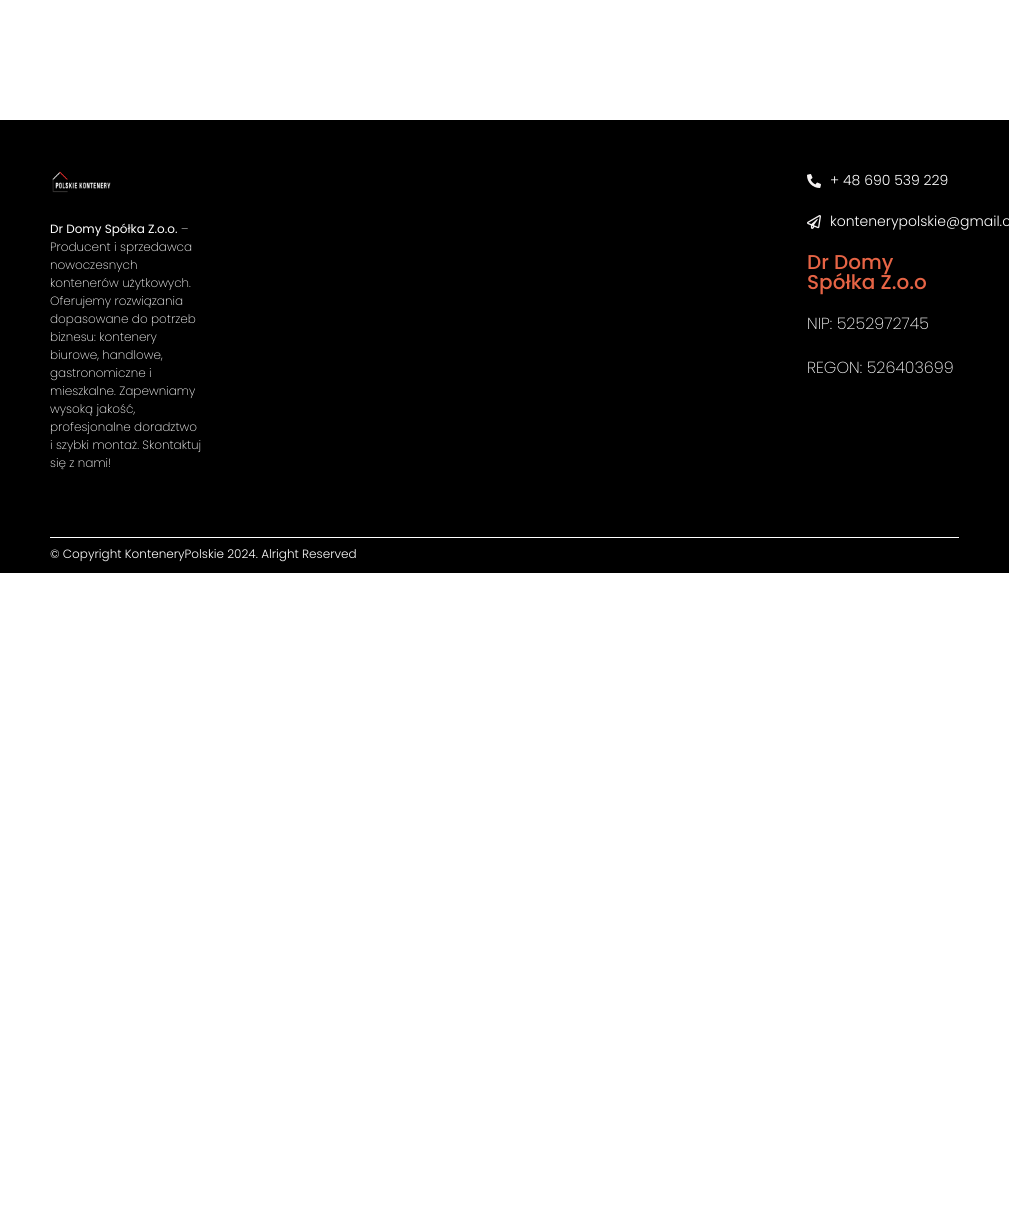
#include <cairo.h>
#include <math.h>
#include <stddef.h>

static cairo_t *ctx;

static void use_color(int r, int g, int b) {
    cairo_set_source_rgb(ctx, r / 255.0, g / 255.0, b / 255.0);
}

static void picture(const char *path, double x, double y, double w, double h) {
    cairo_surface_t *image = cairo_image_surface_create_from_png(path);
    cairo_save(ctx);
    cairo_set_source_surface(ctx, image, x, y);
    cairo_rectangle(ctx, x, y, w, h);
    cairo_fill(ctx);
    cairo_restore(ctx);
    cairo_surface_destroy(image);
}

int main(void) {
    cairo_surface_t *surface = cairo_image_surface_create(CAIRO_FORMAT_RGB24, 1009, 1224);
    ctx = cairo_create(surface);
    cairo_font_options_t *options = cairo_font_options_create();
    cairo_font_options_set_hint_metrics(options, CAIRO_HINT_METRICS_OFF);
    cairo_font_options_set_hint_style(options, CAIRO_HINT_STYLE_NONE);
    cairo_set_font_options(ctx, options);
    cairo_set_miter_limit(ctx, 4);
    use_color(255, 255, 255);
    cairo_paint(ctx);
    use_color(0, 0, 0);
    cairo_rectangle(ctx, 0, 120, 1009, 453);
    cairo_fill(ctx);
    picture("img1.png", 52, 171, 59, 22);
    cairo_select_font_face(ctx, "Poppins", CAIRO_FONT_SLANT_NORMAL, CAIRO_FONT_WEIGHT_NORMAL);
    cairo_set_font_size(ctx, 12);
    use_color(255, 255, 255);
    cairo_move_to(ctx, 50, 233);
    cairo_show_text(ctx, "Dr Domy Spółka Z.o.o.");
    cairo_select_font_face(ctx, "Poppins ExtraLight", CAIRO_FONT_SLANT_NORMAL, CAIRO_FONT_WEIGHT_NORMAL);
    cairo_move_to(ctx, 181, 233);
    cairo_show_text(ctx, "–");
    cairo_move_to(ctx, 50, 251);
    cairo_show_text(ctx, "Producent i sprzedawca");
    cairo_move_to(ctx, 50, 269);
    cairo_show_text(ctx, "nowoczesnych");
    cairo_move_to(ctx, 50, 287);
    cairo_show_text(ctx, "kontenerów użytkowych.");
    cairo_move_to(ctx, 50, 305);
    cairo_show_text(ctx, "Oferujemy rozwiązania");
    cairo_move_to(ctx, 50, 323);
    cairo_show_text(ctx, "dopasowane do potrzeb");
    cairo_move_to(ctx, 50, 341);
    cairo_show_text(ctx, "biznesu: kontenery");
    cairo_move_to(ctx, 50, 359);
    cairo_show_text(ctx, "biurowe, handlowe,");
    cairo_move_to(ctx, 50, 377);
    cairo_show_text(ctx, "gastronomiczne i");
    cairo_move_to(ctx, 50, 395);
    cairo_show_text(ctx, "mieszkalne. Zapewniamy");
    cairo_move_to(ctx, 50, 413);
    cairo_show_text(ctx, "wysoką jakość,");
    cairo_move_to(ctx, 50, 431);
    cairo_show_text(ctx, "profesjonalne doradztwo");
    cairo_move_to(ctx, 50, 449);
    cairo_show_text(ctx, "i szybki montaż. Skontaktuj");
    cairo_move_to(ctx, 50, 467);
    cairo_show_text(ctx, "się z nami!");
    picture("img2.png", 807, 174, 14, 14);
    cairo_select_font_face(ctx, "Poppins Light", CAIRO_FONT_SLANT_NORMAL, CAIRO_FONT_WEIGHT_NORMAL);
    cairo_set_font_size(ctx, 14);
    cairo_move_to(ctx, 830, 185);
    cairo_show_text(ctx, "+ 48 690 539 229");
    picture("img3.png", 807, 215, 14, 14);
    cairo_move_to(ctx, 830, 226);
    cairo_show_text(ctx, "kontenerypolskie@gmail.c");
    cairo_select_font_face(ctx, "Poppins Medium", CAIRO_FONT_SLANT_NORMAL, CAIRO_FONT_WEIGHT_NORMAL);
    cairo_set_font_size(ctx, 20);
    use_color(230, 100, 69);
    cairo_move_to(ctx, 807, 269);
    cairo_show_text(ctx, "Dr Domy");
    cairo_move_to(ctx, 807, 289);
    cairo_show_text(ctx, "Spółka Z.o.o");
    cairo_select_font_face(ctx, "Poppins ExtraLight", CAIRO_FONT_SLANT_NORMAL, CAIRO_FONT_WEIGHT_NORMAL);
    cairo_set_font_size(ctx, 16);
    use_color(255, 255, 255);
    cairo_move_to(ctx, 807, 329);
    cairo_show_text(ctx, "NIP: 5252972745");
    cairo_move_to(ctx, 807, 373);
    cairo_show_text(ctx, "REGON: 526403699");
    cairo_rectangle(ctx, 50, 537, 909, 1);
    cairo_fill(ctx);
    cairo_select_font_face(ctx, "Poppins Light", CAIRO_FONT_SLANT_NORMAL, CAIRO_FONT_WEIGHT_NORMAL);
    cairo_set_font_size(ctx, 12);
    cairo_move_to(ctx, 50, 558);
    cairo_show_text(ctx, "© Copyright KonteneryPolskie 2024. Alright Reserved");
    cairo_surface_write_to_png(surface, "result.png");
    cairo_font_options_destroy(options);
    cairo_destroy(ctx);
    cairo_surface_destroy(surface);
    return 0;
}
